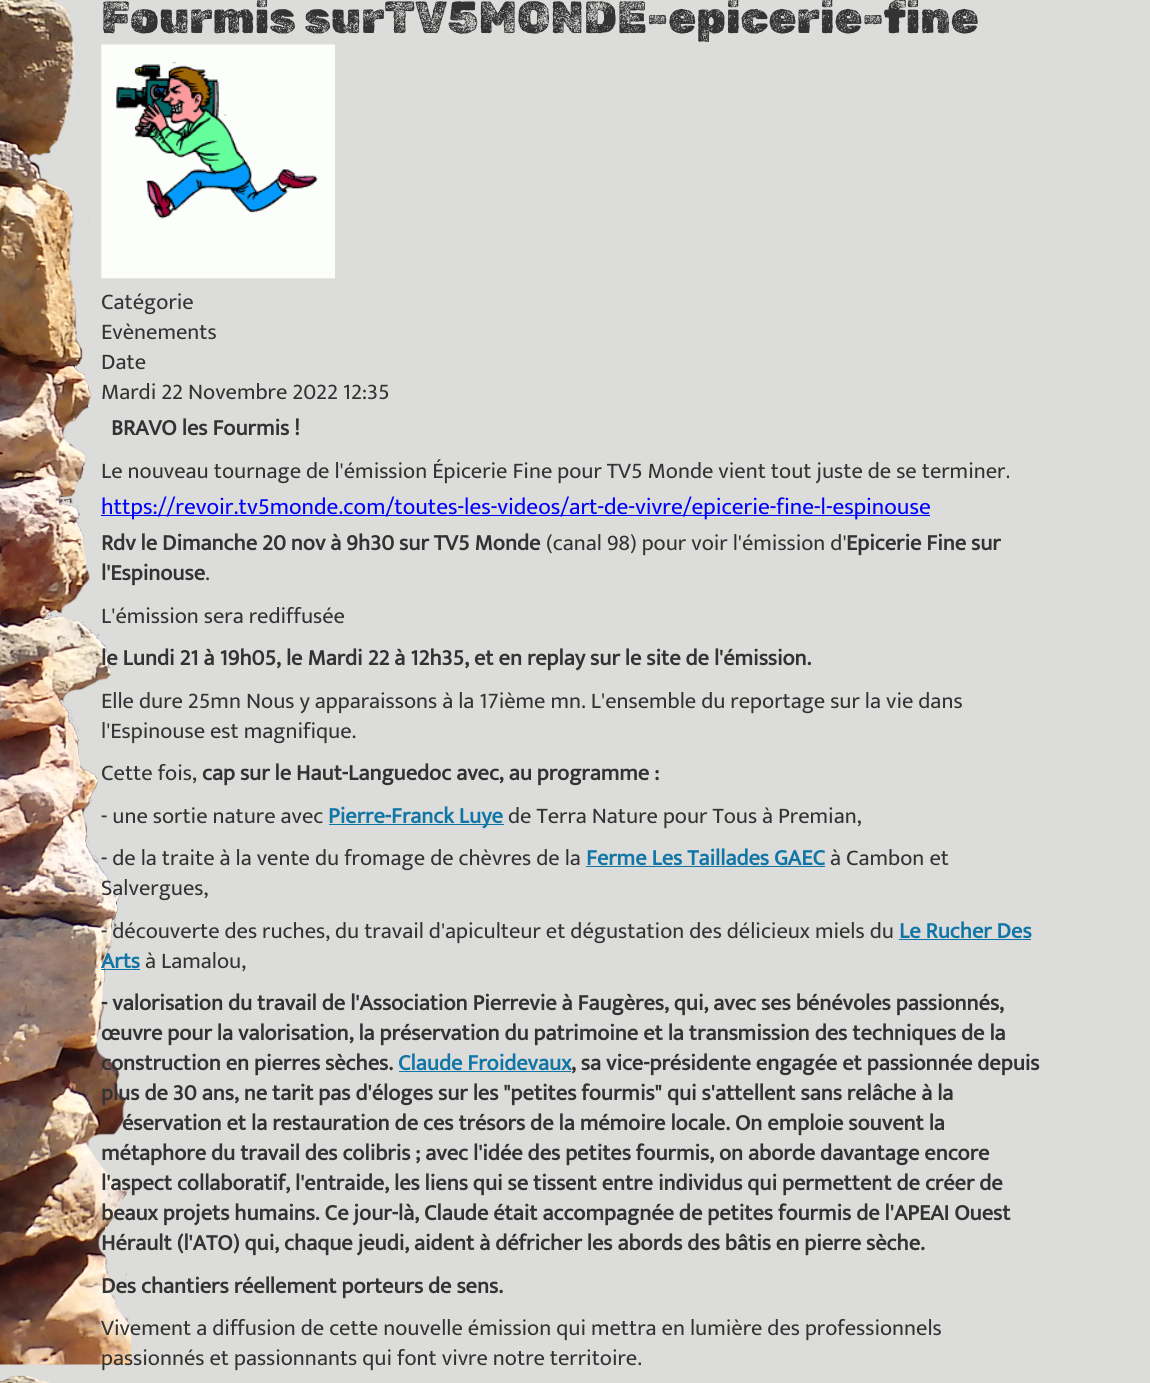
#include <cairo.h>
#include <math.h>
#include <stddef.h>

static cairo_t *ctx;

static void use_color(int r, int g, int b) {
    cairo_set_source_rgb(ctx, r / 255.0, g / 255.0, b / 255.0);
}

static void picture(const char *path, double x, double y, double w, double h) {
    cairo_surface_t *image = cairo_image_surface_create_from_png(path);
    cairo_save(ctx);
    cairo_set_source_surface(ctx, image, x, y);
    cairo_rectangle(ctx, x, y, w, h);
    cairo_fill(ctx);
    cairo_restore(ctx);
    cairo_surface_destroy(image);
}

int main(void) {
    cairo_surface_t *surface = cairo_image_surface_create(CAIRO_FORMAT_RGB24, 1150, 1383);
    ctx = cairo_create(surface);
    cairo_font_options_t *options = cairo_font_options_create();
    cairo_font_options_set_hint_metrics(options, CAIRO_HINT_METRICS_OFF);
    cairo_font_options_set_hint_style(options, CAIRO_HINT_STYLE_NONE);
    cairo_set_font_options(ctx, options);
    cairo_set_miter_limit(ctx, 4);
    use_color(220, 220, 218);
    cairo_paint(ctx);
    picture("img1.png", 0, 0, 140, 1383);
    cairo_select_font_face(ctx, "Rubik Dirt", CAIRO_FONT_SLANT_NORMAL, CAIRO_FONT_WEIGHT_NORMAL);
    cairo_set_font_size(ctx, 45);
    use_color(51, 51, 51);
    cairo_move_to(ctx, 101, 33);
    cairo_show_text(ctx, "Fourmis surTV5MONDE-epicerie-fine");
    picture("img2.png", 101, 44, 234, 235);
    cairo_select_font_face(ctx, "Mukta", CAIRO_FONT_SLANT_NORMAL, CAIRO_FONT_WEIGHT_NORMAL);
    cairo_set_font_size(ctx, 22.5);
    cairo_move_to(ctx, 101, 309);
    cairo_show_text(ctx, "Catégorie");
    cairo_move_to(ctx, 101, 339);
    cairo_show_text(ctx, "Evènements");
    cairo_move_to(ctx, 101, 369);
    cairo_show_text(ctx, "Date");
    cairo_move_to(ctx, 101, 399);
    cairo_show_text(ctx, "Mardi 22 Novembre 2022 12:35");
    cairo_select_font_face(ctx, "Mukta", CAIRO_FONT_SLANT_NORMAL, CAIRO_FONT_WEIGHT_BOLD);
    cairo_move_to(ctx, 111, 435);
    cairo_show_text(ctx, "BRAVO les Fourmis !");
    cairo_select_font_face(ctx, "Mukta", CAIRO_FONT_SLANT_NORMAL, CAIRO_FONT_WEIGHT_NORMAL);
    cairo_move_to(ctx, 101, 478);
    cairo_show_text(ctx, "Le nouveau tournage de l'émission Épicerie Fine pour TV5 Monde vient tout juste de se terminer.");
    use_color(0, 0, 255);
    cairo_rectangle(ctx, 101, 515, 829, 1);
    cairo_fill(ctx);
    cairo_set_font_size(ctx, 23.35);
    cairo_move_to(ctx, 101, 514);
    cairo_show_text(ctx, "https://revoir.tv5monde.com/toutes-les-videos/art-de-vivre/epicerie-fine-l-espinouse");
    cairo_select_font_face(ctx, "Mukta", CAIRO_FONT_SLANT_NORMAL, CAIRO_FONT_WEIGHT_BOLD);
    cairo_set_font_size(ctx, 22.5);
    use_color(51, 51, 51);
    cairo_move_to(ctx, 101, 550);
    cairo_show_text(ctx, "Rdv le Dimanche 20 nov à 9h30 sur TV5 Monde");
    cairo_select_font_face(ctx, "Mukta", CAIRO_FONT_SLANT_NORMAL, CAIRO_FONT_WEIGHT_NORMAL);
    cairo_move_to(ctx, 546, 550);
    cairo_show_text(ctx, "(canal 98) pour voir l'émission d'");
    cairo_select_font_face(ctx, "Mukta", CAIRO_FONT_SLANT_NORMAL, CAIRO_FONT_WEIGHT_BOLD);
    cairo_move_to(ctx, 846, 550);
    cairo_show_text(ctx, "Epicerie Fine sur");
    cairo_move_to(ctx, 101, 580);
    cairo_show_text(ctx, "l'Espinouse");
    cairo_select_font_face(ctx, "Mukta", CAIRO_FONT_SLANT_NORMAL, CAIRO_FONT_WEIGHT_NORMAL);
    cairo_move_to(ctx, 205, 580);
    cairo_show_text(ctx, ".");
    cairo_move_to(ctx, 101, 623);
    cairo_show_text(ctx, "L'émission sera rediffusée");
    cairo_select_font_face(ctx, "Mukta", CAIRO_FONT_SLANT_NORMAL, CAIRO_FONT_WEIGHT_BOLD);
    cairo_move_to(ctx, 101, 665);
    cairo_show_text(ctx, "le Lundi 21 à 19h05, le Mardi 22 à 12h35, et en replay sur le site de l'émission.");
    cairo_select_font_face(ctx, "Mukta", CAIRO_FONT_SLANT_NORMAL, CAIRO_FONT_WEIGHT_NORMAL);
    cairo_move_to(ctx, 101, 708);
    cairo_show_text(ctx, "Elle dure 25mn Nous y apparaissons à la 17ième mn. L'ensemble du reportage sur la vie dans");
    cairo_move_to(ctx, 101, 738);
    cairo_show_text(ctx, "l'Espinouse est magnifique.");
    cairo_move_to(ctx, 101, 780);
    cairo_show_text(ctx, "Cette fois,");
    cairo_select_font_face(ctx, "Mukta", CAIRO_FONT_SLANT_NORMAL, CAIRO_FONT_WEIGHT_BOLD);
    cairo_move_to(ctx, 202, 780);
    cairo_show_text(ctx, "cap sur le Haut-Languedoc avec, au programme :");
    cairo_select_font_face(ctx, "Mukta", CAIRO_FONT_SLANT_NORMAL, CAIRO_FONT_WEIGHT_NORMAL);
    cairo_move_to(ctx, 101, 823);
    cairo_show_text(ctx, "- une sortie nature avec");
    use_color(17, 118, 166);
    cairo_rectangle(ctx, 329, 824, 175, 1);
    cairo_fill(ctx);
    cairo_select_font_face(ctx, "Mukta", CAIRO_FONT_SLANT_NORMAL, CAIRO_FONT_WEIGHT_BOLD);
    cairo_move_to(ctx, 328, 823);
    cairo_show_text(ctx, "Pierre-Franck Luye");
    cairo_select_font_face(ctx, "Mukta", CAIRO_FONT_SLANT_NORMAL, CAIRO_FONT_WEIGHT_NORMAL);
    use_color(51, 51, 51);
    cairo_move_to(ctx, 508, 823);
    cairo_show_text(ctx, "de Terra Nature pour Tous à Premian,");
    cairo_move_to(ctx, 101, 865);
    cairo_show_text(ctx, "- de la traite à la vente du fromage de chèvres de la");
    cairo_select_font_face(ctx, "Mukta", CAIRO_FONT_SLANT_NORMAL, CAIRO_FONT_WEIGHT_BOLD);
    use_color(17, 118, 166);
    cairo_move_to(ctx, 586, 865);
    cairo_show_text(ctx, "Ferme Les Taillades GAEC");
    cairo_rectangle(ctx, 586, 866, 239, 1);
    cairo_fill(ctx);
    cairo_select_font_face(ctx, "Mukta", CAIRO_FONT_SLANT_NORMAL, CAIRO_FONT_WEIGHT_NORMAL);
    use_color(51, 51, 51);
    cairo_move_to(ctx, 830, 865);
    cairo_show_text(ctx, "à Cambon et");
    cairo_move_to(ctx, 101, 895);
    cairo_show_text(ctx, "Salvergues,");
    cairo_move_to(ctx, 101, 938);
    cairo_show_text(ctx, "- découverte des ruches, du travail d'apiculteur et dégustation des délicieux miels du");
    cairo_select_font_face(ctx, "Mukta", CAIRO_FONT_SLANT_NORMAL, CAIRO_FONT_WEIGHT_BOLD);
    use_color(17, 118, 166);
    cairo_move_to(ctx, 899, 938);
    cairo_show_text(ctx, "Le Rucher Des");
    cairo_rectangle(ctx, 899, 939, 132, 1);
    cairo_fill(ctx);
    cairo_move_to(ctx, 101, 968);
    cairo_show_text(ctx, "Arts");
    cairo_rectangle(ctx, 101, 969, 39, 1);
    cairo_fill(ctx);
    cairo_select_font_face(ctx, "Mukta", CAIRO_FONT_SLANT_NORMAL, CAIRO_FONT_WEIGHT_NORMAL);
    use_color(51, 51, 51);
    cairo_move_to(ctx, 145, 968);
    cairo_show_text(ctx, "à Lamalou,");
    cairo_select_font_face(ctx, "Mukta", CAIRO_FONT_SLANT_NORMAL, CAIRO_FONT_WEIGHT_BOLD);
    cairo_move_to(ctx, 101, 1010);
    cairo_show_text(ctx, "- valorisation du travail de l'Association Pierrevie à Faugères, qui, avec ses bénévoles passionnés,");
    cairo_move_to(ctx, 101, 1040);
    cairo_show_text(ctx, "œuvre pour la valorisation, la préservation du patrimoine et la transmission des techniques de la");
    cairo_move_to(ctx, 101, 1070);
    cairo_show_text(ctx, "construction en pierres sèches.");
    use_color(17, 118, 166);
    cairo_move_to(ctx, 398, 1070);
    cairo_show_text(ctx, "Claude Froidevaux");
    cairo_rectangle(ctx, 399, 1071, 172, 1);
    cairo_fill(ctx);
    use_color(51, 51, 51);
    cairo_move_to(ctx, 571, 1070);
    cairo_show_text(ctx, ", sa vice-présidente engagée et passionnée depuis");
    cairo_move_to(ctx, 101, 1100);
    cairo_show_text(ctx, "plus de 30 ans, ne tarit pas d'éloges sur les \"petites fourmis\" qui s'attellent sans relâche à la");
    cairo_move_to(ctx, 122, 1130);
    cairo_show_text(ctx, "éservation et la restauration de ces trésors de la mémoire locale. On emploie souvent la");
    cairo_move_to(ctx, 101, 1160);
    cairo_show_text(ctx, "métaphore du travail des colibris ; avec l'idée des petites fourmis, on aborde davantage encore");
    cairo_move_to(ctx, 101, 1190);
    cairo_show_text(ctx, "l'aspect collaboratif, l'entraide, les liens qui se tissent entre individus qui permettent de créer de");
    cairo_move_to(ctx, 101, 1220);
    cairo_show_text(ctx, "beaux projets humains. Ce jour-là, Claude était accompagnée de petites fourmis de l'APEAI Ouest");
    cairo_move_to(ctx, 101, 1250);
    cairo_show_text(ctx, "Hérault (l'ATO) qui, chaque jeudi, aident à défricher les abords des bâtis en pierre sèche.");
    cairo_move_to(ctx, 101, 1293);
    cairo_show_text(ctx, "Des chantiers réellement porteurs de sens.");
    cairo_select_font_face(ctx, "Mukta", CAIRO_FONT_SLANT_NORMAL, CAIRO_FONT_WEIGHT_NORMAL);
    cairo_move_to(ctx, 101, 1335);
    cairo_show_text(ctx, "Vivement a diffusion de cette nouvelle émission qui mettra en lumière des professionnels");
    cairo_move_to(ctx, 101, 1365);
    cairo_show_text(ctx, "passionnés et passionnants qui font vivre notre territoire.");
    cairo_surface_write_to_png(surface, "result.png");
    cairo_font_options_destroy(options);
    cairo_destroy(ctx);
    cairo_surface_destroy(surface);
    return 0;
}
